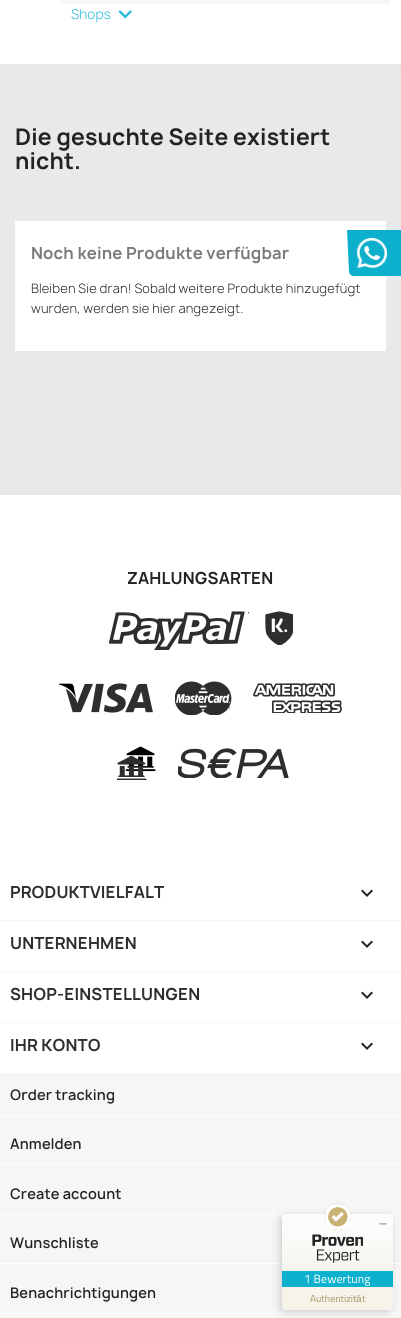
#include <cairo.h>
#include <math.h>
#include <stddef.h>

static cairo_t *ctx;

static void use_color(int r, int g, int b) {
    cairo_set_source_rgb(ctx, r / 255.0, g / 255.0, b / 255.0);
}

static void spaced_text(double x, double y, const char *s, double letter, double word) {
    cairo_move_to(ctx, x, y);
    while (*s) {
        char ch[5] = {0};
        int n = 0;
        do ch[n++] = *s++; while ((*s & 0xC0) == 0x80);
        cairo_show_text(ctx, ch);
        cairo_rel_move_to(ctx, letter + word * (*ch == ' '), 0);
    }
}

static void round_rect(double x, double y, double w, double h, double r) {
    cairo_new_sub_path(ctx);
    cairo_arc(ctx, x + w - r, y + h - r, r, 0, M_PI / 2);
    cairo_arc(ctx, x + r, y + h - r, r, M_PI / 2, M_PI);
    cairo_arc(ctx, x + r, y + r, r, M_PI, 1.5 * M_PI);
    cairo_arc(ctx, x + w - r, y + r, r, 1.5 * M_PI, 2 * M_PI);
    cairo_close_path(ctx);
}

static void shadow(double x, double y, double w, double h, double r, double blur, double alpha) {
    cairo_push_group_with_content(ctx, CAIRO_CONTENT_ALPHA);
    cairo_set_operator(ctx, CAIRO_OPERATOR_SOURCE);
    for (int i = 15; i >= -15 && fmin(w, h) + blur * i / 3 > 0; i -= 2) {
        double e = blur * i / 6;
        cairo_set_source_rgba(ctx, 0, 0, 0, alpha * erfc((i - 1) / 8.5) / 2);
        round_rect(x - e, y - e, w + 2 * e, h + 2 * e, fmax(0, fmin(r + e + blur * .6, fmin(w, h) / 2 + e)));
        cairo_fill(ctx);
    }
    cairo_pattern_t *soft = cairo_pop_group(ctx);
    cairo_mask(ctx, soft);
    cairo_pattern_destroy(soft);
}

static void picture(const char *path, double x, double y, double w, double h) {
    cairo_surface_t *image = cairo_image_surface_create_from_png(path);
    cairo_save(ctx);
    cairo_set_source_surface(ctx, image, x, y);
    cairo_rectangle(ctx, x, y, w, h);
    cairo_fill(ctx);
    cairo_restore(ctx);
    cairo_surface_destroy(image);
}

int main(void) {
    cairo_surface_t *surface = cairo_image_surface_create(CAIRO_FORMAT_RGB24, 401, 1318);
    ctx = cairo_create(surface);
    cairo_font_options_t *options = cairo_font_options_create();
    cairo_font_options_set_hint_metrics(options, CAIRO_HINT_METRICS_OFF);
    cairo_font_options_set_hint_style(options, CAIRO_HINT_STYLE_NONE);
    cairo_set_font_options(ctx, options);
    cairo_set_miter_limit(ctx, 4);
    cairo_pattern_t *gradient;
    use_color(255, 255, 255);
    cairo_paint(ctx);
    use_color(232, 232, 232);
    cairo_rectangle(ctx, 0, 64, 401, 8);
    cairo_fill(ctx);
    use_color(246, 246, 246);
    cairo_new_path(ctx);
    cairo_move_to(ctx, 71, -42);
    cairo_line_to(ctx, 401, -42);
    cairo_line_to(ctx, 389, 4);
    cairo_line_to(ctx, 59, 4);
    cairo_close_path(ctx);
    cairo_fill(ctx);
    cairo_select_font_face(ctx, "Manrope Light", CAIRO_FONT_SLANT_NORMAL, CAIRO_FONT_WEIGHT_NORMAL);
    cairo_set_font_size(ctx, 13);
    use_color(36, 185, 215);
    spaced_text(71, 19, "Shops", 0.15, 0);
    picture("img1.png", 118, 10, 14, 9);
    use_color(231, 233, 234);
    cairo_rectangle(ctx, 0, 72, 401, 423);
    cairo_fill(ctx);
    cairo_select_font_face(ctx, "Manrope", CAIRO_FONT_SLANT_NORMAL, CAIRO_FONT_WEIGHT_BOLD);
    cairo_set_font_size(ctx, 22);
    use_color(35, 35, 35);
    spaced_text(15, 145, "Die gesuchte Seite existiert", 0.15, 0);
    spaced_text(15, 169, "nicht.", 0.15, 0);
    use_color(255, 255, 255);
    cairo_rectangle(ctx, 15, 221, 371, 130);
    cairo_fill(ctx);
    cairo_set_font_size(ctx, 16);
    use_color(122, 122, 122);
    spaced_text(31, 259, "Noch keine Produkte verfügbar", 0.15, 0);
    cairo_select_font_face(ctx, "Manrope Light", CAIRO_FONT_SLANT_NORMAL, CAIRO_FONT_WEIGHT_NORMAL);
    cairo_set_font_size(ctx, 12.4);
    use_color(35, 35, 35);
    spaced_text(31, 293, "Bleiben Sie dran! Sobald weitere Produkte hinzugefügt", 0.15, 0);
    spaced_text(31, 313, "wurden, werden sie hier angezeigt.", 0.15, 0);
    cairo_set_source_rgba(ctx, 1, 1, 1, 0.15);
    cairo_new_path(ctx);
    cairo_move_to(ctx, 352, 276);
    cairo_curve_to(ctx, 352, 279, 354, 281, 357, 281);
    cairo_line_to(ctx, 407, 281);
    cairo_line_to(ctx, 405, 235);
    cairo_line_to(ctx, 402, 235);
    cairo_line_to(ctx, 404, 276);
    cairo_close_path(ctx);
    cairo_fill(ctx);
    use_color(13, 176, 204);
    cairo_new_path(ctx);
    cairo_move_to(ctx, 347, 230);
    cairo_line_to(ctx, 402, 230);
    cairo_line_to(ctx, 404, 276);
    cairo_line_to(ctx, 354, 276);
    cairo_curve_to(ctx, 351, 276, 349, 274, 349, 271);
    cairo_close_path(ctx);
    cairo_fill(ctx);
    picture("img2.png", 356, 238, 32, 30);
    cairo_select_font_face(ctx, "Manrope", CAIRO_FONT_SLANT_NORMAL, CAIRO_FONT_WEIGHT_BOLD);
    cairo_set_font_size(ctx, 16);
    use_color(35, 35, 35);
    spaced_text(127, 584, "ZAHLUNGSARTEN", 0.15, 0);
    picture("img3.png", 109, 611, 140, 39);
    picture("img4.png", 265, 611, 28, 34);
    picture("img5.png", 59, 683, 94, 30);
    picture("img6.png", 175, 681, 57, 34);
    picture("img7.png", 253, 683, 89, 30);
    picture("img8.png", 117, 746, 39, 34);
    picture("img9.png", 178, 748, 111, 30);
    use_color(246, 246, 246);
    cairo_rectangle(ctx, 0, 920, 401, 1);
    cairo_fill(ctx);
    use_color(45, 45, 45);
    spaced_text(10, 898, "PRODUKTVIELFALT", 0.15, 0);
    picture("img10.png", 361, 889, 12, 8);
    use_color(246, 246, 246);
    cairo_rectangle(ctx, 0, 971, 401, 1);
    cairo_fill(ctx);
    use_color(45, 45, 45);
    spaced_text(10, 949, "UNTERNEHMEN", 0.15, 0);
    picture("img10.png", 361, 940, 12, 8);
    use_color(246, 246, 246);
    cairo_rectangle(ctx, 0, 1022, 401, 1);
    cairo_fill(ctx);
    use_color(45, 45, 45);
    spaced_text(10, 1000, "SHOP-EINSTELLUNGEN", 0.15, 0);
    picture("img10.png", 361, 991, 12, 8);
    use_color(246, 246, 246);
    cairo_rectangle(ctx, 0, 1073, 401, 245);
    cairo_fill(ctx);
    use_color(45, 45, 45);
    spaced_text(10, 1051, "IHR KONTO", 0.15, 0);
    picture("img10.png", 361, 1042, 12, 8);
    use_color(255, 255, 255);
    cairo_rectangle(ctx, 0, 1115, 401, 1);
    cairo_fill(ctx);
    cairo_select_font_face(ctx, "Manrope SemiBold", CAIRO_FONT_SLANT_NORMAL, CAIRO_FONT_WEIGHT_NORMAL);
    cairo_set_font_size(ctx, 14);
    use_color(35, 35, 35);
    spaced_text(10, 1100, "Order tracking", 0.15, 0);
    use_color(255, 255, 255);
    cairo_rectangle(ctx, 0, 1164, 401, 1);
    cairo_fill(ctx);
    use_color(35, 35, 35);
    spaced_text(10, 1149, "Anmelden", 0.15, 0);
    use_color(255, 255, 255);
    cairo_rectangle(ctx, 0, 1214, 401, 1);
    cairo_fill(ctx);
    use_color(35, 35, 35);
    spaced_text(10, 1199, "Create account", 0.15, 0);
    use_color(255, 255, 255);
    cairo_rectangle(ctx, 0, 1263, 401, 1);
    cairo_fill(ctx);
    use_color(35, 35, 35);
    spaced_text(10, 1248, "Wunschliste", 0.15, 0);
    use_color(255, 255, 255);
    cairo_rectangle(ctx, 0, 1313, 401, 1);
    cairo_fill(ctx);
    use_color(35, 35, 35);
    spaced_text(10, 1298, "Benachrichtigungen", 0.15, 0);
    cairo_save(ctx);
    cairo_set_fill_rule(ctx, CAIRO_FILL_RULE_EVEN_ODD);
    cairo_new_path(ctx);
    cairo_move_to(ctx, 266, 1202);
    cairo_line_to(ctx, 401, 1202);
    cairo_line_to(ctx, 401, 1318);
    cairo_line_to(ctx, 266, 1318);
    cairo_close_path(ctx);
    cairo_move_to(ctx, 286, 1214);
    cairo_line_to(ctx, 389, 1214);
    cairo_curve_to(ctx, 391, 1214, 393, 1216, 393, 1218);
    cairo_line_to(ctx, 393, 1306);
    cairo_curve_to(ctx, 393, 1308, 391, 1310, 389, 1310);
    cairo_line_to(ctx, 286, 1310);
    cairo_curve_to(ctx, 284, 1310, 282, 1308, 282, 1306);
    cairo_line_to(ctx, 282, 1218);
    cairo_curve_to(ctx, 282, 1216, 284, 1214, 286, 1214);
    cairo_close_path(ctx);
    cairo_clip(ctx);
    use_color(0, 0, 0);
    shadow(282, 1218, 107, 92, 2, 5, 0.25);
    cairo_restore(ctx);
    gradient = cairo_pattern_create_linear(338, 1310, 338, 1214);
    cairo_pattern_add_color_stop_rgba(gradient, 0.37, 0.965, 0.953, 0.918, 0.91);
    cairo_pattern_add_color_stop_rgba(gradient, 0.9, 1, 1, 1, 0.66);
    cairo_set_source(ctx, gradient);
    cairo_pattern_destroy(gradient);
    round_rect(282, 1214, 111, 96, 4);
    cairo_fill(ctx);
    use_color(0, 0, 0);
    shadow(329, 1206, 18, 18, 9, 2.5, 0.25);
    use_color(255, 255, 255);
    cairo_arc(ctx, 338, 1217, 13, 0, 2 * M_PI);
    cairo_fill(ctx);
    picture("img11.png", 325, 1204, 26, 26);
    cairo_arc(ctx, 338, 1217, 11.5, 0, 2 * M_PI);
    cairo_set_line_width(ctx, 3);
    cairo_stroke(ctx);
    picture("img12.png", 312, 1234, 51, 29);
    picture("img13.png", 379, 1223, 8, 2);
    use_color(13, 177, 205);
    cairo_rectangle(ctx, 282, 1271, 111, 16);
    cairo_fill(ctx);
    cairo_select_font_face(ctx, "Titillium Web", CAIRO_FONT_SLANT_NORMAL, CAIRO_FONT_WEIGHT_NORMAL);
    cairo_set_font_size(ctx, 12);
    use_color(255, 255, 255);
    spaced_text(304, 1283, "1 Bewertung", 0.1, 0);
    cairo_set_font_size(ctx, 10);
    use_color(167, 149, 99);
    cairo_move_to(ctx, 310, 1302);
    cairo_show_text(ctx, "Authentizit");
    cairo_select_font_face(ctx, "Liberation Sans", CAIRO_FONT_SLANT_NORMAL, CAIRO_FONT_WEIGHT_NORMAL);
    cairo_move_to(ctx, 356, 1302);
    cairo_show_text(ctx, "ä");
    cairo_select_font_face(ctx, "Titillium Web", CAIRO_FONT_SLANT_NORMAL, CAIRO_FONT_WEIGHT_NORMAL);
    cairo_move_to(ctx, 362, 1302);
    cairo_show_text(ctx, "t");
    cairo_surface_write_to_png(surface, "result.png");
    cairo_font_options_destroy(options);
    cairo_destroy(ctx);
    cairo_surface_destroy(surface);
    return 0;
}
